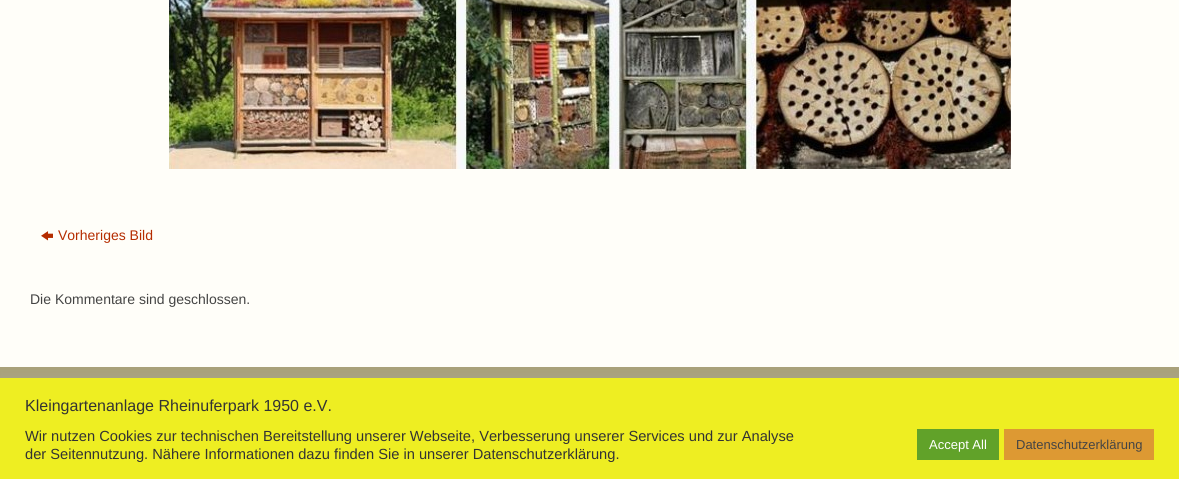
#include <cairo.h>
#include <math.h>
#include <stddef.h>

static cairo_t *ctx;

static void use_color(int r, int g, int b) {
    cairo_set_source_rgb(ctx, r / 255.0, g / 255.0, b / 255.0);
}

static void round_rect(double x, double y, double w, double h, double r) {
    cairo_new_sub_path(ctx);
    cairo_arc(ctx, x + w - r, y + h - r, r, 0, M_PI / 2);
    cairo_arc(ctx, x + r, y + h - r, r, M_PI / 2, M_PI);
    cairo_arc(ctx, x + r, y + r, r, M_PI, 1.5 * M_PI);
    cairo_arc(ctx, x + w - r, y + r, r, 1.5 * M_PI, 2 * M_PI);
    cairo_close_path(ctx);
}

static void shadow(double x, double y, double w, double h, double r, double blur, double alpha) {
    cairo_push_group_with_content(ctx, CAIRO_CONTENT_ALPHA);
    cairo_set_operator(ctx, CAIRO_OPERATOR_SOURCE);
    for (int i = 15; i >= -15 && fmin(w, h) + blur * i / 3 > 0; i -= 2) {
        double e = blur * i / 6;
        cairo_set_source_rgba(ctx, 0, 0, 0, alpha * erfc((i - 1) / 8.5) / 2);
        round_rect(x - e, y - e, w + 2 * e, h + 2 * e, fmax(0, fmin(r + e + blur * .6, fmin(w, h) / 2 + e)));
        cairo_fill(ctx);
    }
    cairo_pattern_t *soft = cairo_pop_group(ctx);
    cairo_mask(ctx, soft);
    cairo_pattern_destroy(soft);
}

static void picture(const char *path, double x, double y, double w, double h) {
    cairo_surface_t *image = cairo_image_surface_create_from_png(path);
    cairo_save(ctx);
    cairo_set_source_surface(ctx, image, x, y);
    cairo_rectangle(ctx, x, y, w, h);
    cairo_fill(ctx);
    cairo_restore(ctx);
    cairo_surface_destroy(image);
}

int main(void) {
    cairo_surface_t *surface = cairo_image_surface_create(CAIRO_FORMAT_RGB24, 1179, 479);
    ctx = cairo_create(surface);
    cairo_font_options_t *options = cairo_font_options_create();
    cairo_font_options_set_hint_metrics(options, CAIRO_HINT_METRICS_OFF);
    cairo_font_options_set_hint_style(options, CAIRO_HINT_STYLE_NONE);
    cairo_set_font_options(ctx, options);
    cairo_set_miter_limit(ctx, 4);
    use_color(255, 254, 249);
    cairo_paint(ctx);
    picture("img1.png", 169, 0, 842, 169);
    picture("img2.png", 41, 231, 12, 10);
    cairo_select_font_face(ctx, "Liberation Sans", CAIRO_FONT_SLANT_NORMAL, CAIRO_FONT_WEIGHT_NORMAL);
    cairo_set_font_size(ctx, 14);
    use_color(181, 44, 0);
    cairo_move_to(ctx, 58, 240);
    cairo_show_text(ctx, "Vorheriges Bild");
    use_color(68, 68, 68);
    cairo_move_to(ctx, 30, 304);
    cairo_show_text(ctx, "Die Kommentare sind geschlossen.");
    use_color(169, 161, 122);
    cairo_rectangle(ctx, 0, 367, 1179, 11);
    cairo_fill(ctx);
    use_color(172, 171, 171);
    shadow(0, 377, 1179, 101, 0, 5, 0.3);
    use_color(238, 238, 34);
    cairo_rectangle(ctx, 0, 378, 1179, 101);
    cairo_fill(ctx);
    cairo_set_font_size(ctx, 16);
    use_color(51, 51, 51);
    cairo_move_to(ctx, 25, 411);
    cairo_show_text(ctx, "Kleingartenanlage Rheinuferpark 1950 e.V.");
    cairo_set_font_size(ctx, 14.67);
    cairo_move_to(ctx, 25, 441);
    cairo_show_text(ctx, "Wir nutzen Cookies zur technischen Bereitstellung unserer Webseite, Verbesserung unserer Services und zur Analyse");
    cairo_move_to(ctx, 25, 459);
    cairo_show_text(ctx, "der Seitennutzung. Nähere Informationen dazu finden Sie in unserer Datenschutzerklärung.");
    use_color(97, 162, 41);
    cairo_rectangle(ctx, 917, 429, 82, 31);
    cairo_fill(ctx);
    cairo_set_font_size(ctx, 13);
    use_color(255, 255, 255);
    cairo_move_to(ctx, 929, 449);
    cairo_show_text(ctx, "Accept All");
    use_color(221, 153, 51);
    cairo_rectangle(ctx, 1004, 429, 150, 31);
    cairo_fill(ctx);
    use_color(68, 68, 68);
    cairo_move_to(ctx, 1016, 449);
    cairo_show_text(ctx, "Datenschutzerklärung");
    cairo_surface_write_to_png(surface, "result.png");
    cairo_font_options_destroy(options);
    cairo_destroy(ctx);
    cairo_surface_destroy(surface);
    return 0;
}
